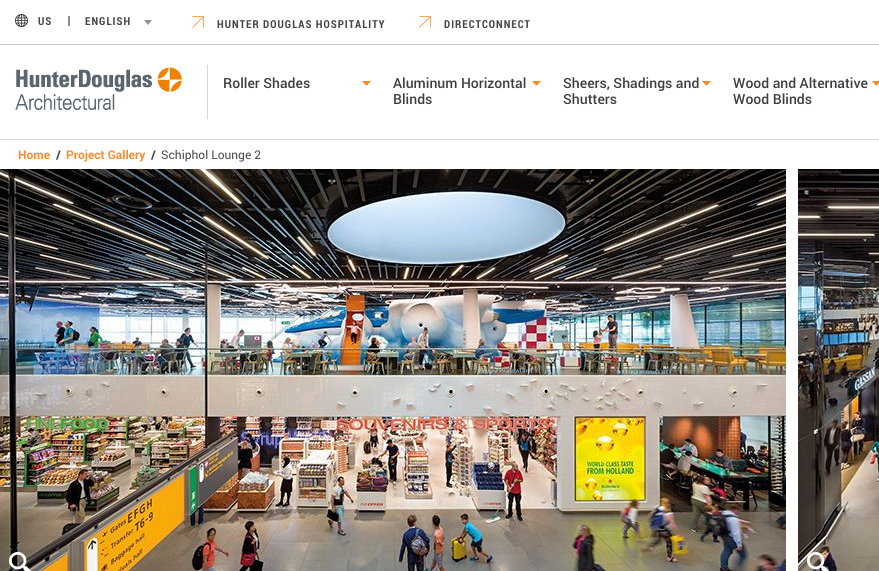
#include <cairo.h>
#include <math.h>
#include <stddef.h>

static cairo_t *ctx;

static void use_color(int r, int g, int b) {
    cairo_set_source_rgb(ctx, r / 255.0, g / 255.0, b / 255.0);
}

static void spaced_text(double x, double y, const char *s, double letter, double word) {
    cairo_move_to(ctx, x, y);
    while (*s) {
        char ch[5] = {0};
        int n = 0;
        do ch[n++] = *s++; while ((*s & 0xC0) == 0x80);
        cairo_show_text(ctx, ch);
        cairo_rel_move_to(ctx, letter + word * (*ch == ' '), 0);
    }
}

static void picture(const char *path, double x, double y, double w, double h) {
    cairo_surface_t *image = cairo_image_surface_create_from_png(path);
    cairo_save(ctx);
    cairo_set_source_surface(ctx, image, x, y);
    cairo_rectangle(ctx, x, y, w, h);
    cairo_fill(ctx);
    cairo_restore(ctx);
    cairo_surface_destroy(image);
}

int main(void) {
    cairo_surface_t *surface = cairo_image_surface_create(CAIRO_FORMAT_RGB24, 879, 571);
    ctx = cairo_create(surface);
    cairo_font_options_t *options = cairo_font_options_create();
    cairo_font_options_set_hint_metrics(options, CAIRO_HINT_METRICS_OFF);
    cairo_font_options_set_hint_style(options, CAIRO_HINT_STYLE_NONE);
    cairo_set_font_options(ctx, options);
    cairo_set_miter_limit(ctx, 4);
    use_color(255, 255, 255);
    cairo_paint(ctx);
    use_color(204, 204, 204);
    cairo_rectangle(ctx, 0, 44, 879, 1);
    cairo_fill(ctx);
    picture("img1.png", 15, 14, 13, 13);
    cairo_select_font_face(ctx, "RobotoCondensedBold", CAIRO_FONT_SLANT_NORMAL, CAIRO_FONT_WEIGHT_BOLD);
    cairo_set_font_size(ctx, 11);
    use_color(71, 71, 71);
    spaced_text(38, 25, "US", 1, 0);
    use_color(142, 142, 142);
    cairo_rectangle(ctx, 68, 16, 2, 10);
    cairo_fill(ctx);
    use_color(71, 71, 71);
    spaced_text(85, 25, "ENGLISH", 1, 0);
    picture("img2.png", 144, 20, 8, 5);
    picture("img3.png", 192, 16, 12, 12);
    spaced_text(217, 28, "HUNTER DOUGLAS HOSPITALITY", 1, 0);
    picture("img3.png", 419, 16, 12, 12);
    spaced_text(444, 28, "DIRECTCONNECT", 1, 0);
    use_color(214, 214, 214);
    cairo_rectangle(ctx, 0, 139, 879, 1);
    cairo_fill(ctx);
    cairo_rectangle(ctx, 207, 65, 1, 54);
    cairo_fill(ctx);
    picture("img4.png", 15, 67, 167, 43);
    cairo_select_font_face(ctx, "Roboto Medium", CAIRO_FONT_SLANT_NORMAL, CAIRO_FONT_WEIGHT_NORMAL);
    cairo_set_font_size(ctx, 14);
    use_color(59, 63, 66);
    cairo_move_to(ctx, 223, 88);
    cairo_show_text(ctx, "Roller Shades");
    picture("img5.png", 362, 81, 9, 5);
    cairo_move_to(ctx, 393, 88);
    cairo_show_text(ctx, "Aluminum Horizontal");
    picture("img5.png", 532, 81, 9, 5);
    cairo_move_to(ctx, 393, 104);
    cairo_show_text(ctx, "Blinds");
    cairo_move_to(ctx, 563, 88);
    cairo_show_text(ctx, "Sheers, Shadings and");
    picture("img5.png", 702, 81, 9, 5);
    cairo_move_to(ctx, 563, 104);
    cairo_show_text(ctx, "Shutters");
    cairo_move_to(ctx, 733, 88);
    cairo_show_text(ctx, "Wood and Alternative");
    picture("img6.png", 872, 81, 7, 5);
    cairo_move_to(ctx, 733, 104);
    cairo_show_text(ctx, "Wood Blinds");
    cairo_select_font_face(ctx, "Roboto", CAIRO_FONT_SLANT_NORMAL, CAIRO_FONT_WEIGHT_BOLD);
    cairo_set_font_size(ctx, 12);
    use_color(249, 140, 47);
    cairo_move_to(ctx, 18, 159);
    cairo_show_text(ctx, "Home");
    use_color(71, 71, 71);
    cairo_move_to(ctx, 56, 159);
    cairo_show_text(ctx, "/");
    use_color(249, 140, 47);
    cairo_move_to(ctx, 66, 159);
    cairo_show_text(ctx, "Project Gallery");
    use_color(71, 71, 71);
    cairo_move_to(ctx, 151, 159);
    cairo_show_text(ctx, "/");
    cairo_select_font_face(ctx, "Roboto", CAIRO_FONT_SLANT_NORMAL, CAIRO_FONT_WEIGHT_NORMAL);
    cairo_move_to(ctx, 161, 159);
    cairo_show_text(ctx, "Schiphol Lounge 2");
    picture("img7.png", 0, 169, 786, 402);
    picture("img8.png", 9, 552, 22, 19);
    picture("img9.png", 798, 169, 81, 402);
    picture("img10.png", 807, 552, 22, 19);
    cairo_surface_write_to_png(surface, "result.png");
    cairo_font_options_destroy(options);
    cairo_destroy(ctx);
    cairo_surface_destroy(surface);
    return 0;
}
